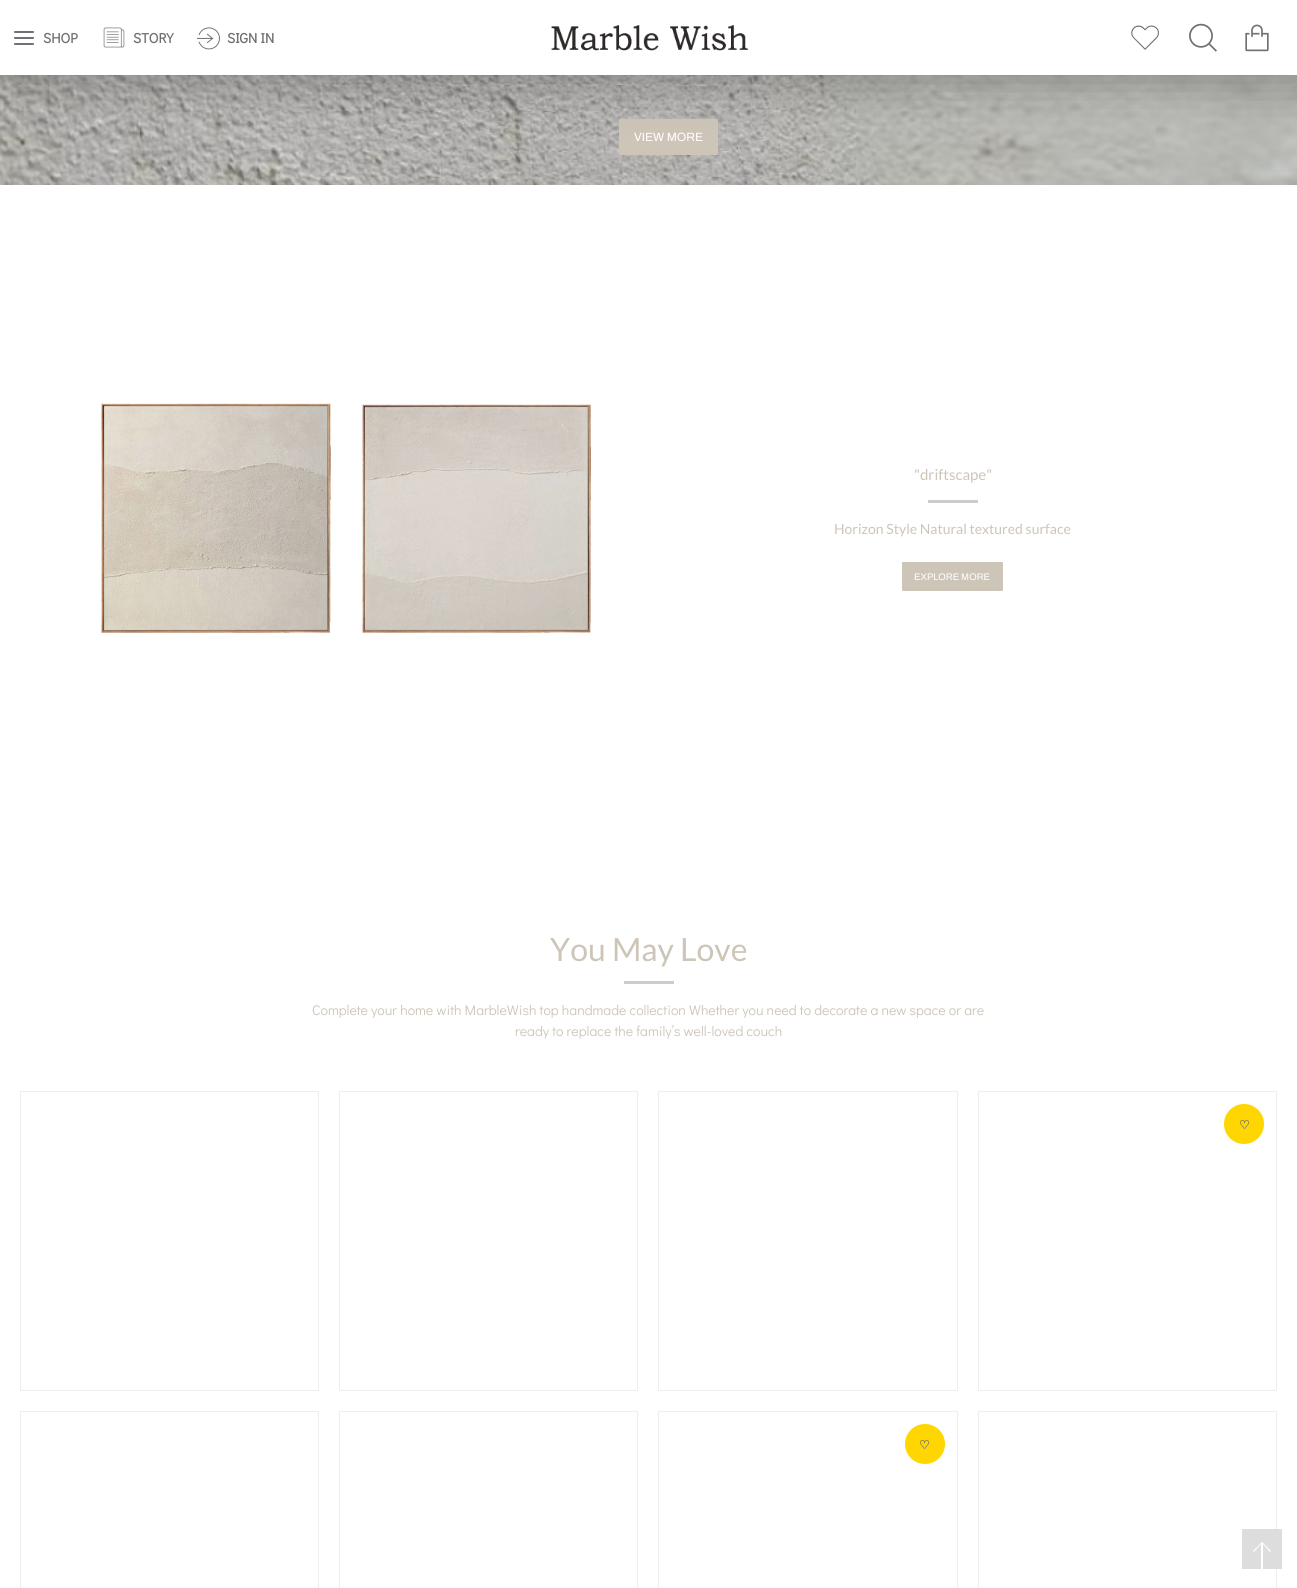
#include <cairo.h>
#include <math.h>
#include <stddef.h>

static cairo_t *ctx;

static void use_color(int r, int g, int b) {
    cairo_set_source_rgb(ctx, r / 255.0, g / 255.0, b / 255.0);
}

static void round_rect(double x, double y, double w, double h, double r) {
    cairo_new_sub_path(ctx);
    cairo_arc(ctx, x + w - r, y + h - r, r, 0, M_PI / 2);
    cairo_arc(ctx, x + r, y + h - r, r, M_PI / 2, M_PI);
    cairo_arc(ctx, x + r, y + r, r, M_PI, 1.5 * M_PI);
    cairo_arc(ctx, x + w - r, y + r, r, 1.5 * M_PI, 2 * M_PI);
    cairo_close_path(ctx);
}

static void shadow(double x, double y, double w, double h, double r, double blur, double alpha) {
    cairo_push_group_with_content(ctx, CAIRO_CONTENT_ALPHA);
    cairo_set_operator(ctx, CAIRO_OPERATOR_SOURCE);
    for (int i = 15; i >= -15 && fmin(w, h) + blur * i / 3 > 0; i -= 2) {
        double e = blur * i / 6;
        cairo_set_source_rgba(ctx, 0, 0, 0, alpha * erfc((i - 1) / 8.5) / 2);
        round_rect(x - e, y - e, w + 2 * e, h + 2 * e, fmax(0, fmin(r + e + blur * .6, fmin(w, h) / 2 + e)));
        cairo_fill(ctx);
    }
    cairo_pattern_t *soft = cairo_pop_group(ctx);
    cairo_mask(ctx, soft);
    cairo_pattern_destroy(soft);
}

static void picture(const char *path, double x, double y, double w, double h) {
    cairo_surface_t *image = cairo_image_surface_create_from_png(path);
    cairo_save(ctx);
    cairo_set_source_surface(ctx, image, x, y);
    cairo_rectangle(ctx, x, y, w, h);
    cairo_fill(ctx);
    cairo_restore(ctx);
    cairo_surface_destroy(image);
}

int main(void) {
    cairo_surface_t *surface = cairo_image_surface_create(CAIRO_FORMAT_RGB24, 1297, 1588);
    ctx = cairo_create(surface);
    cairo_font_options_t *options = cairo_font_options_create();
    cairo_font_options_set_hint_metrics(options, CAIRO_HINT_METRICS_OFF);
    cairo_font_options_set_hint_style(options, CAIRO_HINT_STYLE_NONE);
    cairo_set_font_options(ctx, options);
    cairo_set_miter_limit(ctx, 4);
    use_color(255, 255, 255);
    cairo_paint(ctx);
    picture("img8.png", 0, 75, 1297, 110);
    use_color(205, 197, 184);
    round_rect(619, 119, 99, 36, 1);
    cairo_fill(ctx);
    use_color(0, 0, 0);
    shadow(15, -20, 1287, 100, 0, 25, 0.3);
    use_color(255, 255, 255);
    cairo_rectangle(ctx, 0, 0, 1297, 75);
    cairo_fill(ctx);
    picture("img1.png", 14, 31, 20, 14);
    cairo_select_font_face(ctx, "Didact Gothic", CAIRO_FONT_SLANT_NORMAL, CAIRO_FONT_WEIGHT_BOLD);
    cairo_set_font_size(ctx, 14);
    use_color(112, 112, 117);
    cairo_move_to(ctx, 43, 43);
    cairo_show_text(ctx, "SHOP");
    picture("img2.png", 103, 27, 22, 21);
    cairo_move_to(ctx, 133, 43);
    cairo_show_text(ctx, "STORY");
    picture("img3.png", 197, 27, 23, 23);
    cairo_move_to(ctx, 227, 43);
    cairo_show_text(ctx, "SIGN IN");
    picture("img4.png", 551, 25, 198, 26);
    picture("img5.png", 1131, 25, 28, 25);
    picture("img6.png", 1189, 23, 28, 29);
    picture("img7.png", 1245, 24, 24, 28);
    cairo_select_font_face(ctx, "Archivo", CAIRO_FONT_SLANT_NORMAL, CAIRO_FONT_WEIGHT_NORMAL);
    cairo_set_font_size(ctx, 12);
    use_color(255, 255, 255);
    cairo_move_to(ctx, 634, 141);
    cairo_show_text(ctx, "VIEW MORE");
    picture("img9.png", 101, 403, 490, 230);
    cairo_select_font_face(ctx, "Lato", CAIRO_FONT_SLANT_NORMAL, CAIRO_FONT_WEIGHT_NORMAL);
    cairo_set_font_size(ctx, 15);
    use_color(205, 197, 184);
    cairo_move_to(ctx, 914, 480);
    cairo_show_text(ctx, "\"driftscape\"");
    use_color(204, 204, 201);
    cairo_rectangle(ctx, 928, 500, 50, 3);
    cairo_fill(ctx);
    cairo_set_font_size(ctx, 14);
    use_color(205, 197, 184);
    cairo_move_to(ctx, 834, 534);
    cairo_show_text(ctx, "Horizon Style Natural textured surface");
    round_rect(902, 562, 101, 29, 1);
    cairo_fill(ctx);
    cairo_select_font_face(ctx, "Archivo", CAIRO_FONT_SLANT_NORMAL, CAIRO_FONT_WEIGHT_NORMAL);
    cairo_set_font_size(ctx, 9.5);
    use_color(255, 255, 255);
    cairo_move_to(ctx, 914, 580);
    cairo_show_text(ctx, "EXPLORE MORE");
    cairo_select_font_face(ctx, "Lato", CAIRO_FONT_SLANT_NORMAL, CAIRO_FONT_WEIGHT_NORMAL);
    cairo_set_font_size(ctx, 32);
    use_color(205, 197, 184);
    cairo_move_to(ctx, 550, 961);
    cairo_show_text(ctx, "You May Love");
    use_color(204, 204, 201);
    cairo_rectangle(ctx, 624, 981, 50, 3);
    cairo_fill(ctx);
    cairo_select_font_face(ctx, "Didact Gothic", CAIRO_FONT_SLANT_NORMAL, CAIRO_FONT_WEIGHT_NORMAL);
    cairo_set_font_size(ctx, 14);
    use_color(205, 197, 184);
    cairo_move_to(ctx, 312, 1015);
    cairo_show_text(ctx, "Complete your home with MarbleWish top handmade collection Whether you need to decorate a new space or are");
    cairo_move_to(ctx, 515, 1036);
    cairo_show_text(ctx, "ready to replace the family’s well-loved couch");
    cairo_rectangle(ctx, 20.5, 1091.5, 298, 299);
    use_color(238, 238, 238);
    cairo_set_line_width(ctx, 1);
    cairo_stroke(ctx);
    cairo_rectangle(ctx, 339.5, 1091.5, 298, 299);
    cairo_stroke(ctx);
    cairo_rectangle(ctx, 658.5, 1091.5, 299, 299);
    cairo_stroke(ctx);
    cairo_rectangle(ctx, 978.5, 1091.5, 298, 299);
    cairo_stroke(ctx);
    use_color(255, 214, 0);
    cairo_arc(ctx, 1244, 1124, 20, 0, 2 * M_PI);
    cairo_fill(ctx);
    cairo_select_font_face(ctx, "DejaVu Sans", CAIRO_FONT_SLANT_NORMAL, CAIRO_FONT_WEIGHT_BOLD);
    cairo_set_font_size(ctx, 12);
    use_color(112, 112, 117);
    cairo_move_to(ctx, 1239, 1129);
    cairo_show_text(ctx, "♡");
    cairo_rectangle(ctx, 20.5, 1411.5, 298, 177);
    use_color(238, 238, 238);
    cairo_stroke(ctx);
    cairo_rectangle(ctx, 339.5, 1411.5, 298, 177);
    cairo_stroke(ctx);
    cairo_rectangle(ctx, 658.5, 1411.5, 299, 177);
    cairo_stroke(ctx);
    use_color(255, 214, 0);
    cairo_arc(ctx, 925, 1444, 20, 0, 2 * M_PI);
    cairo_fill(ctx);
    use_color(112, 112, 117);
    cairo_move_to(ctx, 919, 1449);
    cairo_show_text(ctx, "♡");
    cairo_rectangle(ctx, 978.5, 1411.5, 298, 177);
    use_color(238, 238, 238);
    cairo_stroke(ctx);
    use_color(221, 221, 221);
    cairo_new_path(ctx);
    cairo_move_to(ctx, 1261, 1569);
    cairo_line_to(ctx, 1261, 1544);
    cairo_line_to(ctx, 1254, 1552);
    cairo_line_to(ctx, 1253, 1551);
    cairo_line_to(ctx, 1262, 1542);
    cairo_line_to(ctx, 1271, 1551);
    cairo_line_to(ctx, 1270, 1552);
    cairo_line_to(ctx, 1263, 1544);
    cairo_line_to(ctx, 1263, 1569);
    cairo_line_to(ctx, 1282, 1569);
    cairo_line_to(ctx, 1282, 1529);
    cairo_line_to(ctx, 1242, 1529);
    cairo_line_to(ctx, 1242, 1569);
    cairo_close_path(ctx);
    cairo_fill(ctx);
    cairo_surface_write_to_png(surface, "result.png");
    cairo_font_options_destroy(options);
    cairo_destroy(ctx);
    cairo_surface_destroy(surface);
    return 0;
}
